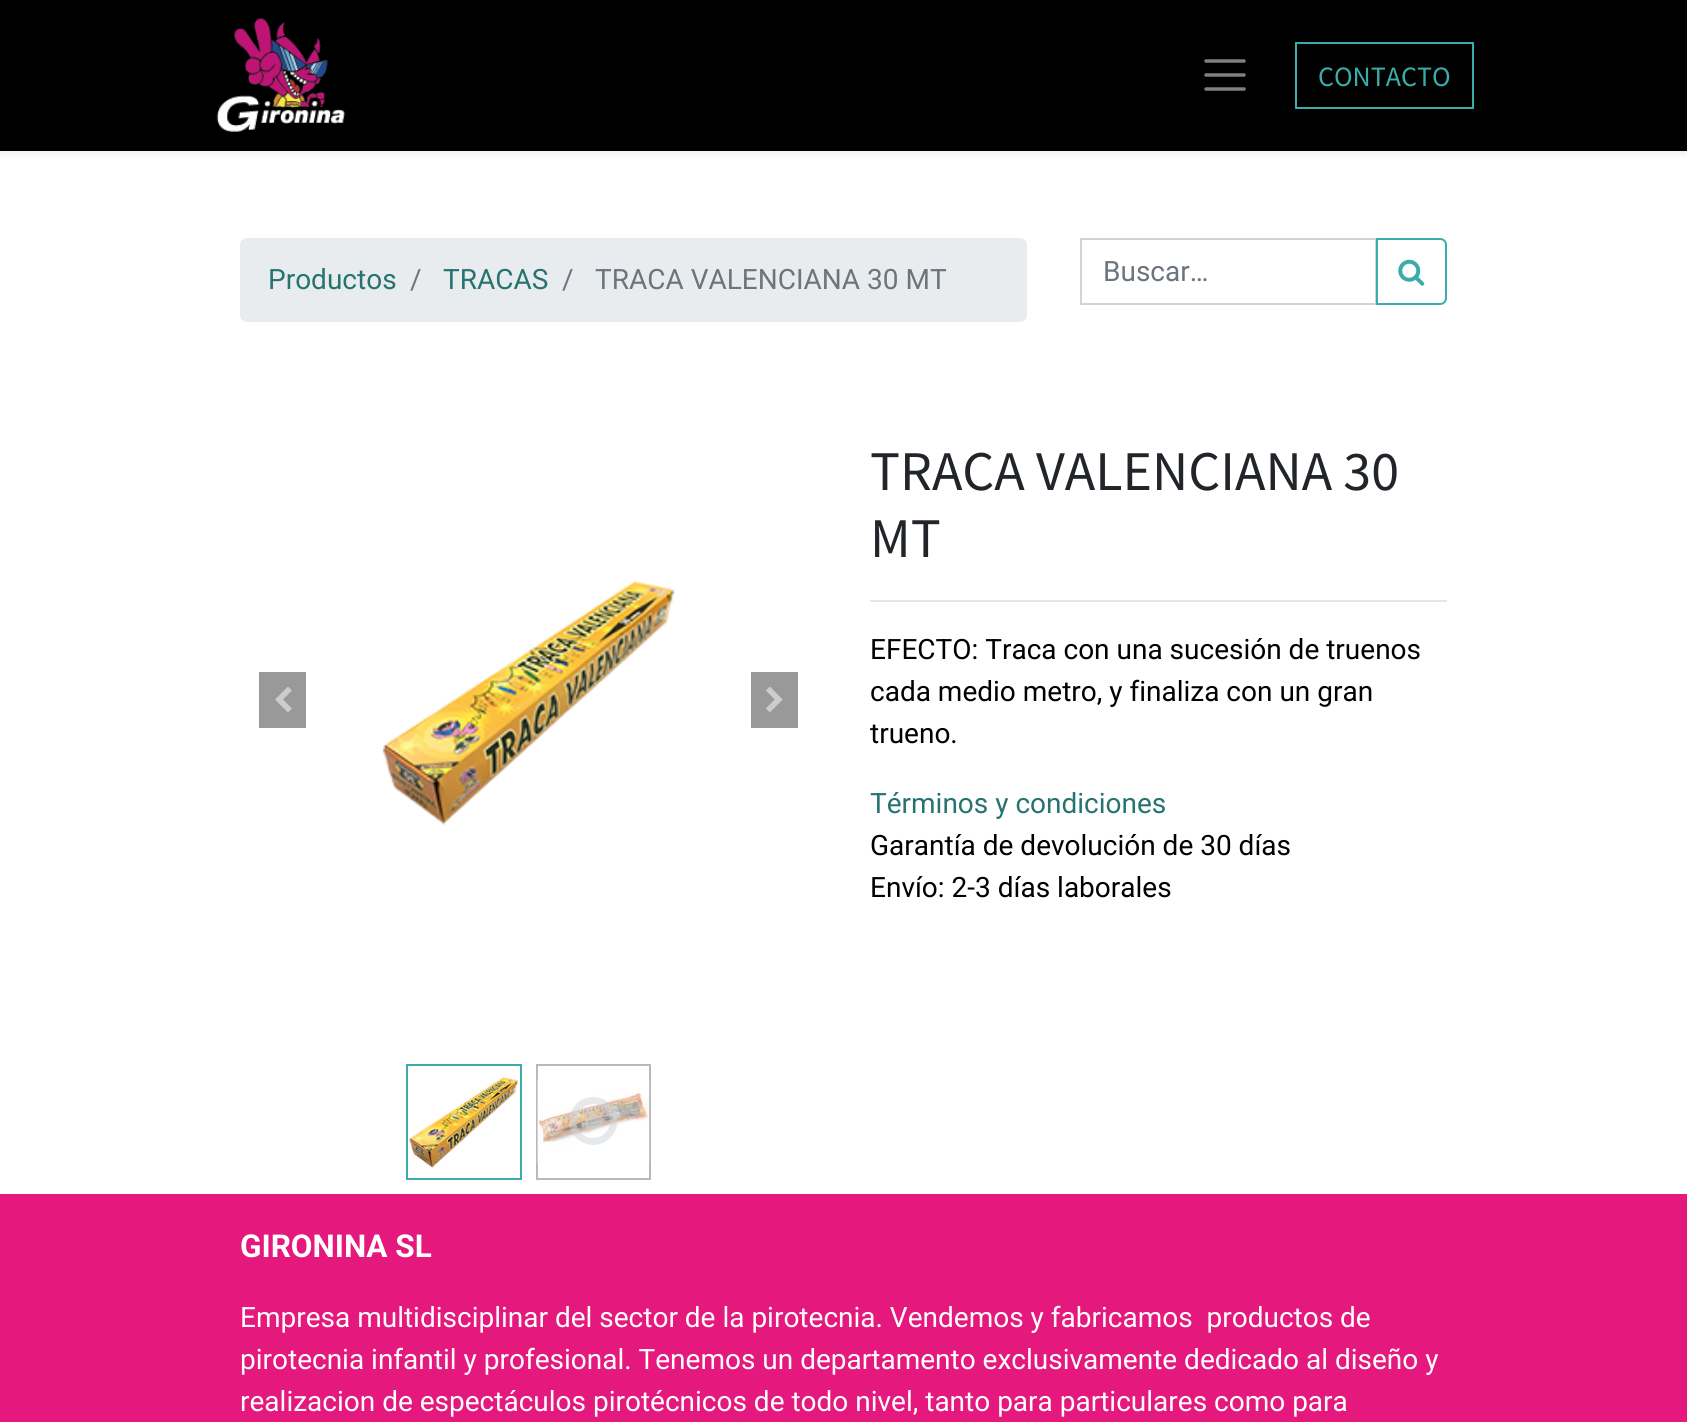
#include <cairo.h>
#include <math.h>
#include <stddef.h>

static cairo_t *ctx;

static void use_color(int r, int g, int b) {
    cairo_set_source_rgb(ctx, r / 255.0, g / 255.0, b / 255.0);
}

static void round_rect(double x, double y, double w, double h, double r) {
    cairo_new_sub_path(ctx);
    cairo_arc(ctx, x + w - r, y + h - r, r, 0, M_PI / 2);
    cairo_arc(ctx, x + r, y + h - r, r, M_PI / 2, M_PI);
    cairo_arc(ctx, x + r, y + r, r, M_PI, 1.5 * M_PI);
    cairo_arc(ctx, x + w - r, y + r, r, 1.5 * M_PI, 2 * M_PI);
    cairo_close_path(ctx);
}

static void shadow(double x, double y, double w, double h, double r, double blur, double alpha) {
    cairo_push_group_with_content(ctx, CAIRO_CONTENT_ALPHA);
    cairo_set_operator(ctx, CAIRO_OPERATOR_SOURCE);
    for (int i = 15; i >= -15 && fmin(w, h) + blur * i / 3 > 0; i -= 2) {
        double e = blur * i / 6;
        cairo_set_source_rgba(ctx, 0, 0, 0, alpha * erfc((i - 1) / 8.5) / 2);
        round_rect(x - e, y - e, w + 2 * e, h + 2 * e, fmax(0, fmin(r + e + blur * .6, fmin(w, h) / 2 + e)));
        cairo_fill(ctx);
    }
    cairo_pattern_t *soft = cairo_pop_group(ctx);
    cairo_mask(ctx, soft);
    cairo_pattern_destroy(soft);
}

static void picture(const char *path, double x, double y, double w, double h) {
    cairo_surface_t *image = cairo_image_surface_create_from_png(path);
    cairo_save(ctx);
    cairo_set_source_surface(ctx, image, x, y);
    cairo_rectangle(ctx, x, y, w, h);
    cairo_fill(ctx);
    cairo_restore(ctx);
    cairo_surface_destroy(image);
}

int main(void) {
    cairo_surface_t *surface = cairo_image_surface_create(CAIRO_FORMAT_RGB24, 1687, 1422);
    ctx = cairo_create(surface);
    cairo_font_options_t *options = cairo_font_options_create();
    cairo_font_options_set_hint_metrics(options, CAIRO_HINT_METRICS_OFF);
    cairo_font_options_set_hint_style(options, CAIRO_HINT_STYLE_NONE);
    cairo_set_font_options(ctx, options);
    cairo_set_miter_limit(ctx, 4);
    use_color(255, 255, 255);
    cairo_paint(ctx);
    use_color(0, 0, 0);
    shadow(0, 4, 1687, 150, 0, 3.5, 0.07);
    use_color(1, 0, 0);
    cairo_rectangle(ctx, 0, 0, 1687, 151);
    cairo_fill(ctx);
    picture("img1.png", 216, 18, 129, 114);
    cairo_new_path(ctx);
    cairo_move_to(ctx, 1206, 61);
    cairo_line_to(ctx, 1244, 61);
    cairo_move_to(ctx, 1206, 75);
    cairo_line_to(ctx, 1244, 75);
    cairo_move_to(ctx, 1206, 89);
    cairo_line_to(ctx, 1244, 89);
    use_color(128, 128, 128);
    cairo_set_line_width(ctx, 3.5);
    cairo_set_line_cap(ctx, CAIRO_LINE_CAP_ROUND);
    cairo_stroke(ctx);
    cairo_rectangle(ctx, 1296, 43, 177, 65);
    use_color(58, 173, 170);
    cairo_set_line_width(ctx, 2);
    cairo_set_line_cap(ctx, CAIRO_LINE_CAP_BUTT);
    cairo_stroke(ctx);
    cairo_select_font_face(ctx, "Source Sans Pro", CAIRO_FONT_SLANT_NORMAL, CAIRO_FONT_WEIGHT_NORMAL);
    cairo_set_font_size(ctx, 28);
    cairo_move_to(ctx, 1318, 86);
    cairo_show_text(ctx, "CONTACTO");
    use_color(233, 236, 239);
    round_rect(240, 238, 787, 84, 7);
    cairo_fill(ctx);
    cairo_select_font_face(ctx, "Roboto", CAIRO_FONT_SLANT_NORMAL, CAIRO_FONT_WEIGHT_NORMAL);
    use_color(38, 115, 114);
    cairo_move_to(ctx, 268, 289);
    cairo_show_text(ctx, "Productos");
    use_color(108, 117, 125);
    cairo_move_to(ctx, 410, 289);
    cairo_show_text(ctx, "/");
    use_color(38, 115, 114);
    cairo_move_to(ctx, 443, 289);
    cairo_show_text(ctx, "TRACAS");
    use_color(108, 117, 125);
    cairo_move_to(ctx, 562, 289);
    cairo_show_text(ctx, "/");
    cairo_move_to(ctx, 595, 289);
    cairo_show_text(ctx, "TRACA VALENCIANA 30 MT");
    cairo_rectangle(ctx, 1081, 239, 295, 65);
    use_color(206, 212, 218);
    cairo_stroke(ctx);
    use_color(108, 117, 125);
    cairo_move_to(ctx, 1103, 281);
    cairo_show_text(ctx, "Buscar…");
    cairo_new_path(ctx);
    cairo_move_to(ctx, 1377, 239);
    cairo_line_to(ctx, 1440, 239);
    cairo_curve_to(ctx, 1443.5, 239, 1446, 241.5, 1446, 245);
    cairo_line_to(ctx, 1446, 298);
    cairo_curve_to(ctx, 1446, 301.5, 1443.5, 304, 1440, 304);
    cairo_line_to(ctx, 1377, 304);
    cairo_close_path(ctx);
    use_color(58, 173, 170);
    cairo_stroke(ctx);
    picture("img2.png", 1398, 259, 27, 27);
    use_color(153, 153, 153);
    cairo_rectangle(ctx, 259, 672, 47, 56);
    cairo_fill(ctx);
    picture("img3.png", 275, 687, 17, 25);
    picture("img4.png", 382, 580, 293, 245);
    cairo_rectangle(ctx, 751, 672, 47, 56);
    cairo_fill(ctx);
    picture("img5.png", 766, 687, 17, 25);
    cairo_rectangle(ctx, 407, 1065, 114, 114);
    use_color(58, 173, 170);
    cairo_stroke(ctx);
    picture("img6.png", 409, 1077, 109, 91);
    cairo_rectangle(ctx, 537, 1065, 113, 114);
    use_color(182, 186, 190);
    cairo_stroke(ctx);
    picture("img7.png", 537, 1079, 113, 85);
    picture("img8.png", 569, 1097, 49, 48);
    cairo_select_font_face(ctx, "Source Sans Pro", CAIRO_FONT_SLANT_NORMAL, CAIRO_FONT_WEIGHT_NORMAL);
    cairo_set_font_size(ctx, 56);
    use_color(33, 37, 41);
    cairo_move_to(ctx, 870, 490);
    cairo_show_text(ctx, "TRACA VALENCIANA 30");
    cairo_move_to(ctx, 870, 557);
    cairo_show_text(ctx, "MT");
    use_color(230, 230, 230);
    cairo_rectangle(ctx, 870, 600, 577, 2);
    cairo_fill(ctx);
    cairo_select_font_face(ctx, "Roboto", CAIRO_FONT_SLANT_NORMAL, CAIRO_FONT_WEIGHT_NORMAL);
    cairo_set_font_size(ctx, 28);
    use_color(1, 0, 0);
    cairo_move_to(ctx, 870, 659);
    cairo_show_text(ctx, "EFECTO: Traca con una sucesión de truenos");
    cairo_move_to(ctx, 870, 701);
    cairo_show_text(ctx, "cada medio metro, y finaliza con un gran");
    cairo_move_to(ctx, 870, 743);
    cairo_show_text(ctx, "trueno.");
    use_color(38, 115, 114);
    cairo_move_to(ctx, 870, 813);
    cairo_show_text(ctx, "Términos y condiciones");
    use_color(1, 0, 0);
    cairo_move_to(ctx, 870, 855);
    cairo_show_text(ctx, "Garantía de devolución de 30 días");
    cairo_move_to(ctx, 870, 897);
    cairo_show_text(ctx, "Envío: 2-3 días laborales");
    use_color(228, 24, 125);
    cairo_rectangle(ctx, 0, 1194, 1687, 228);
    cairo_fill(ctx);
    cairo_select_font_face(ctx, "Roboto", CAIRO_FONT_SLANT_NORMAL, CAIRO_FONT_WEIGHT_BOLD);
    cairo_set_font_size(ctx, 31.5);
    use_color(255, 255, 255);
    cairo_move_to(ctx, 240, 1257);
    cairo_show_text(ctx, "GIRONINA SL");
    cairo_select_font_face(ctx, "Roboto", CAIRO_FONT_SLANT_NORMAL, CAIRO_FONT_WEIGHT_NORMAL);
    cairo_set_font_size(ctx, 28);
    cairo_move_to(ctx, 240, 1327);
    cairo_show_text(ctx, "Empresa multidisciplinar del sector de la pirotecnia. Vendemos y fabricamos  productos de");
    cairo_move_to(ctx, 240, 1369);
    cairo_show_text(ctx, "pirotecnia infantil y profesional. Tenemos un departamento exclusivamente dedicado al diseño y");
    cairo_move_to(ctx, 240, 1411);
    cairo_show_text(ctx, "realizacion de espectáculos pirotécnicos de todo nivel, tanto para particulares como para");
    cairo_surface_write_to_png(surface, "result.png");
    cairo_font_options_destroy(options);
    cairo_destroy(ctx);
    cairo_surface_destroy(surface);
    return 0;
}
